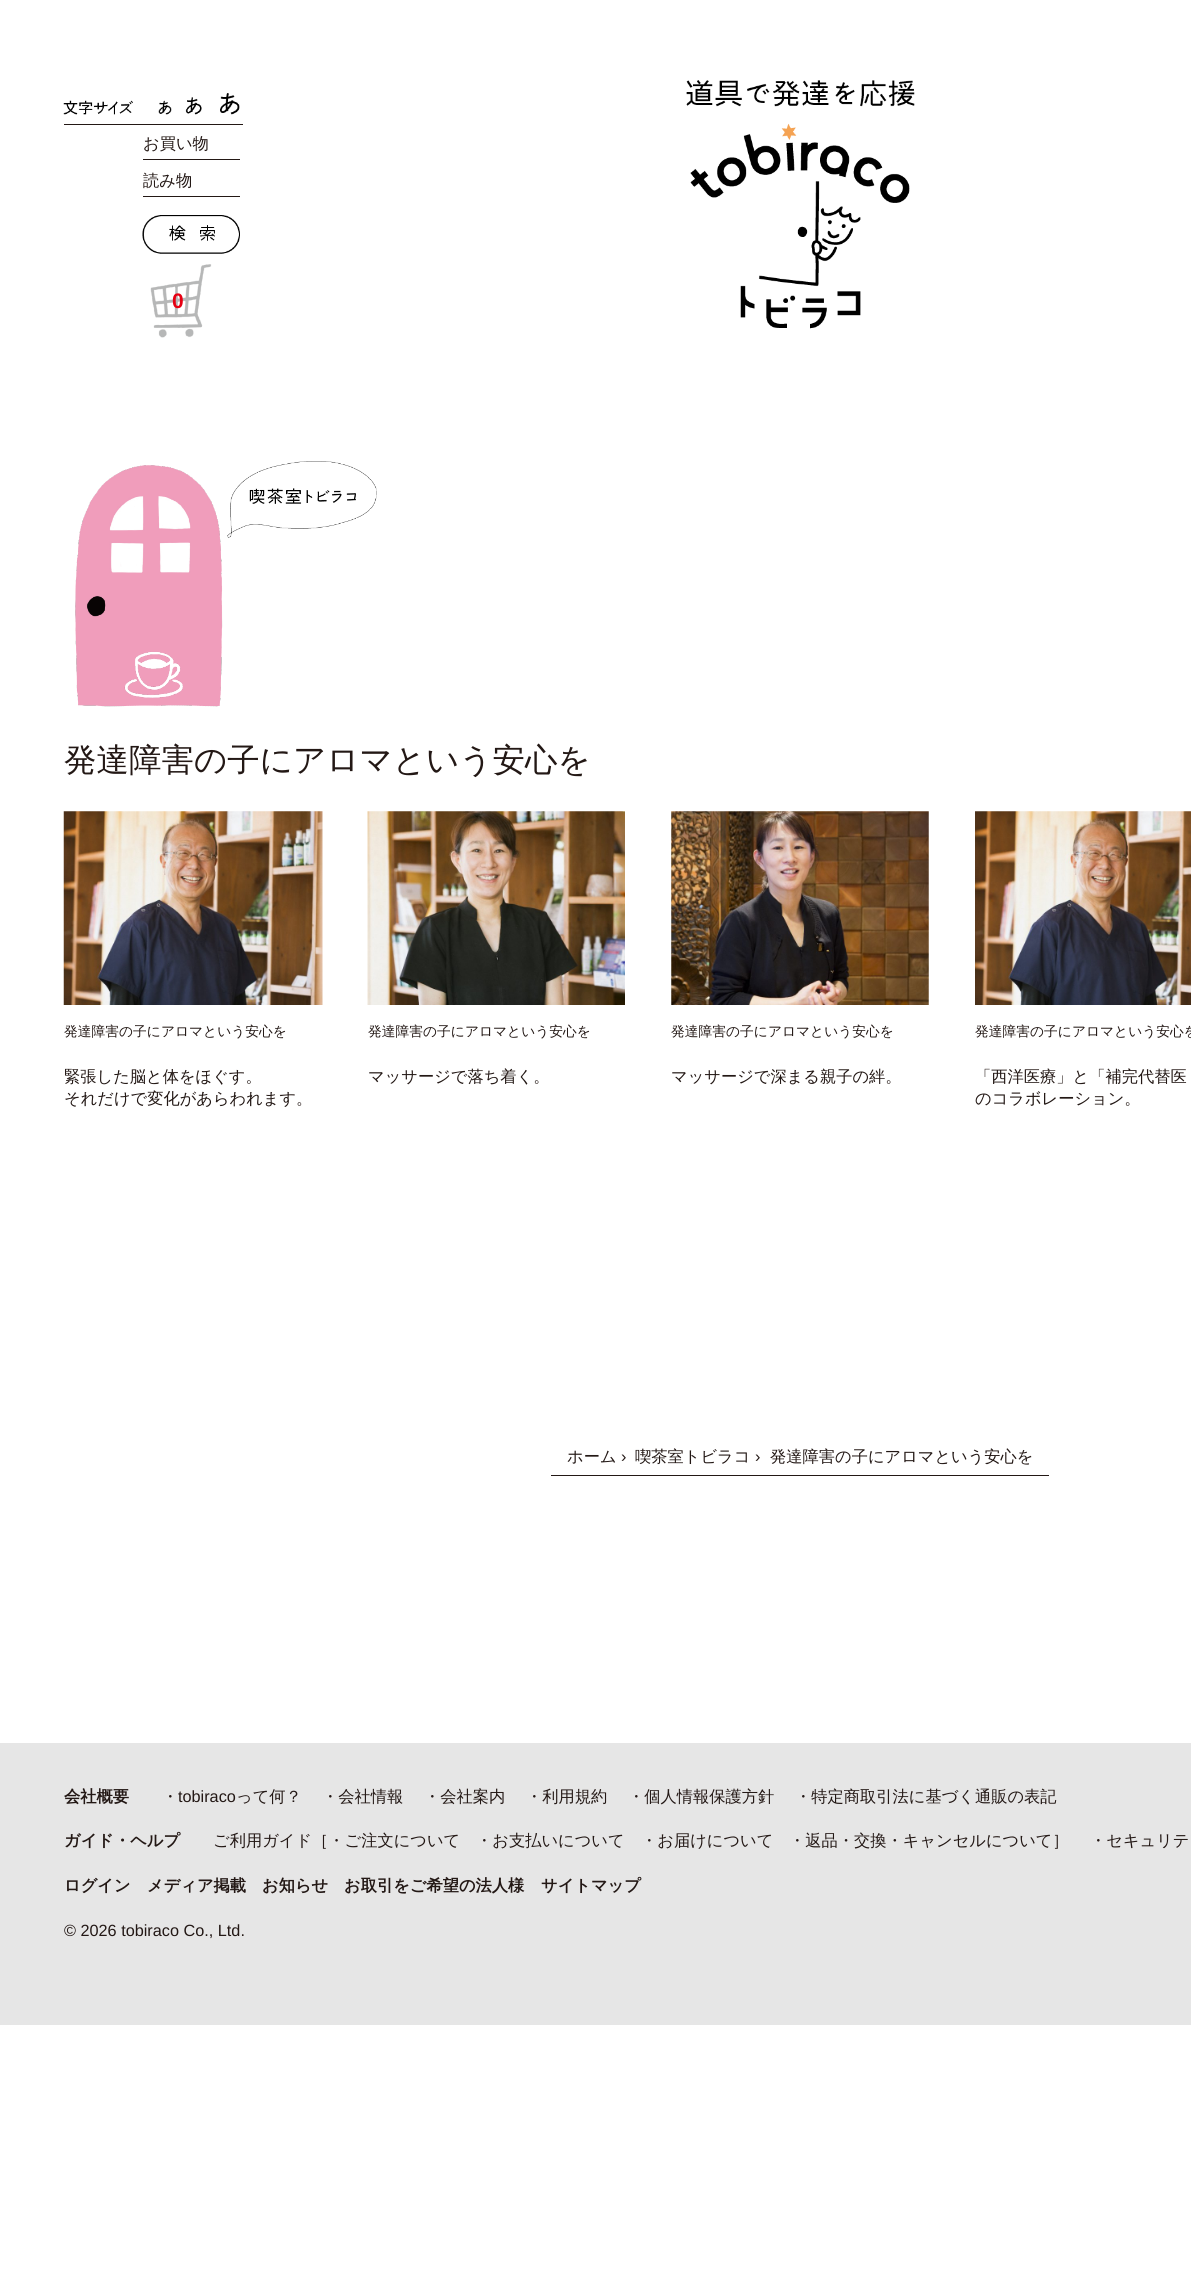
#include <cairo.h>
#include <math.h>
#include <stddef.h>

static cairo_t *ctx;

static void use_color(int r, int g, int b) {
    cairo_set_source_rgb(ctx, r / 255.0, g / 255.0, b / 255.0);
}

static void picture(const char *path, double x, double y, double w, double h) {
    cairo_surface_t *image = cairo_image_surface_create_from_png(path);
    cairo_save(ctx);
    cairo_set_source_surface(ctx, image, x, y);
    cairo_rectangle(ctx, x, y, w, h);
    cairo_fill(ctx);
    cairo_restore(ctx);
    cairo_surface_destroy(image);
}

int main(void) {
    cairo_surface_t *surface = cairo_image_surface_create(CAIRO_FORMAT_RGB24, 1191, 2283);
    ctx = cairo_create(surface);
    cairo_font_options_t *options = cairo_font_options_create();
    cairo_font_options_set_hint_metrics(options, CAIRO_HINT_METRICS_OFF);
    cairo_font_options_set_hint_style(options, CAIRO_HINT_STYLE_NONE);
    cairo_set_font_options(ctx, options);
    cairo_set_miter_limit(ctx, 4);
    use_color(255, 255, 255);
    cairo_paint(ctx);
    use_color(35, 24, 21);
    cairo_rectangle(ctx, 64, 124, 179, 1);
    cairo_fill(ctx);
    picture("img1.png", 63, 100, 70, 15);
    picture("img2.png", 158, 100, 14, 15);
    picture("img3.png", 185, 97, 17, 18);
    picture("img4.png", 220, 93, 20, 22);
    picture("img5.png", 686, 80, 229, 249);
    cairo_rectangle(ctx, 143, 159, 97, 1);
    cairo_fill(ctx);
    cairo_select_font_face(ctx, "WenQuanYi Zen Hei Medium", CAIRO_FONT_SLANT_NORMAL, CAIRO_FONT_WEIGHT_NORMAL);
    cairo_set_font_size(ctx, 16.25);
    cairo_move_to(ctx, 143, 149);
    cairo_show_text(ctx, "お買い物");
    cairo_rectangle(ctx, 143, 196, 97, 1);
    cairo_fill(ctx);
    cairo_move_to(ctx, 143, 186);
    cairo_show_text(ctx, "読み物");
    picture("img6.png", 142, 215, 98, 39);
    picture("img7.png", 150, 264, 62, 74);
    cairo_select_font_face(ctx, "Liberation Sans", CAIRO_FONT_SLANT_NORMAL, CAIRO_FONT_WEIGHT_BOLD);
    cairo_set_font_size(ctx, 21);
    use_color(230, 0, 18);
    cairo_move_to(ctx, 172, 308);
    cairo_show_text(ctx, "0");
    picture("img8.png", 75, 461, 302, 246);
    cairo_select_font_face(ctx, "WenQuanYi Zen Hei Medium", CAIRO_FONT_SLANT_NORMAL, CAIRO_FONT_WEIGHT_NORMAL);
    cairo_set_font_size(ctx, 32.5);
    use_color(35, 24, 21);
    cairo_move_to(ctx, 64, 771);
    cairo_show_text(ctx, "発達障害の子にアロマという安心を");
    picture("img9.png", 63, 811, 260, 194);
    cairo_set_font_size(ctx, 13.75);
    cairo_move_to(ctx, 64, 1036);
    cairo_show_text(ctx, "発達障害の子にアロマという安心を");
    cairo_set_font_size(ctx, 16.25);
    cairo_move_to(ctx, 64, 1082);
    cairo_show_text(ctx, "緊張した脳と体をほぐす。");
    cairo_move_to(ctx, 64, 1104);
    cairo_show_text(ctx, "それだけで変化があらわれます。");
    picture("img10.png", 367, 811, 258, 194);
    cairo_set_font_size(ctx, 13.75);
    cairo_move_to(ctx, 368, 1036);
    cairo_show_text(ctx, "発達障害の子にアロマという安心を");
    cairo_set_font_size(ctx, 16.25);
    cairo_move_to(ctx, 368, 1082);
    cairo_show_text(ctx, "マッサージで落ち着く。");
    picture("img11.png", 671, 811, 258, 194);
    cairo_set_font_size(ctx, 13.75);
    cairo_move_to(ctx, 671, 1036);
    cairo_show_text(ctx, "発達障害の子にアロマという安心を");
    cairo_set_font_size(ctx, 16.25);
    cairo_move_to(ctx, 671, 1082);
    cairo_show_text(ctx, "マッサージで深まる親子の絆。");
    picture("img12.png", 975, 811, 216, 194);
    cairo_set_font_size(ctx, 13.75);
    cairo_move_to(ctx, 975, 1036);
    cairo_show_text(ctx, "発達障害の子にアロマという安心を");
    cairo_set_font_size(ctx, 16.25);
    cairo_move_to(ctx, 975, 1082);
    cairo_show_text(ctx, "「西洋医療」と「補完代替医");
    cairo_move_to(ctx, 975, 1104);
    cairo_show_text(ctx, "のコラボレーション。");
    cairo_rectangle(ctx, 551, 1475, 498, 1);
    cairo_fill(ctx);
    cairo_move_to(ctx, 567, 1462);
    cairo_show_text(ctx, "ホーム");
    cairo_select_font_face(ctx, "Liberation Sans", CAIRO_FONT_SLANT_NORMAL, CAIRO_FONT_WEIGHT_NORMAL);
    cairo_move_to(ctx, 621, 1462);
    cairo_show_text(ctx, "›");
    cairo_select_font_face(ctx, "WenQuanYi Zen Hei Medium", CAIRO_FONT_SLANT_NORMAL, CAIRO_FONT_WEIGHT_NORMAL);
    cairo_move_to(ctx, 635, 1462);
    cairo_show_text(ctx, "喫茶室トビラコ");
    cairo_select_font_face(ctx, "Liberation Sans", CAIRO_FONT_SLANT_NORMAL, CAIRO_FONT_WEIGHT_NORMAL);
    cairo_move_to(ctx, 755, 1462);
    cairo_show_text(ctx, "›");
    cairo_select_font_face(ctx, "WenQuanYi Zen Hei Medium", CAIRO_FONT_SLANT_NORMAL, CAIRO_FONT_WEIGHT_NORMAL);
    cairo_move_to(ctx, 770, 1462);
    cairo_show_text(ctx, "発達障害の子にアロマという安心を");
    use_color(230, 230, 230);
    cairo_rectangle(ctx, 0, 1743, 1191, 282);
    cairo_fill(ctx);
    cairo_select_font_face(ctx, "WenQuanYi Zen Hei", CAIRO_FONT_SLANT_NORMAL, CAIRO_FONT_WEIGHT_BOLD);
    use_color(35, 24, 21);
    cairo_move_to(ctx, 64, 1802);
    cairo_show_text(ctx, "会社概要");
    cairo_select_font_face(ctx, "WenQuanYi Zen Hei Medium", CAIRO_FONT_SLANT_NORMAL, CAIRO_FONT_WEIGHT_NORMAL);
    cairo_move_to(ctx, 162, 1802);
    cairo_show_text(ctx, "・");
    cairo_select_font_face(ctx, "Liberation Sans", CAIRO_FONT_SLANT_NORMAL, CAIRO_FONT_WEIGHT_NORMAL);
    cairo_move_to(ctx, 178, 1802);
    cairo_show_text(ctx, "tobiraco");
    cairo_select_font_face(ctx, "WenQuanYi Zen Hei Medium", CAIRO_FONT_SLANT_NORMAL, CAIRO_FONT_WEIGHT_NORMAL);
    cairo_move_to(ctx, 236, 1802);
    cairo_show_text(ctx, "って何？");
    cairo_move_to(ctx, 322, 1802);
    cairo_show_text(ctx, "・会社情報");
    cairo_move_to(ctx, 424, 1802);
    cairo_show_text(ctx, "・会社案内");
    cairo_move_to(ctx, 526, 1802);
    cairo_show_text(ctx, "・利用規約");
    cairo_move_to(ctx, 628, 1802);
    cairo_show_text(ctx, "・個人情報保護方針");
    cairo_move_to(ctx, 795, 1802);
    cairo_show_text(ctx, "・特定商取引法に基づく通販の表記");
    cairo_select_font_face(ctx, "WenQuanYi Zen Hei", CAIRO_FONT_SLANT_NORMAL, CAIRO_FONT_WEIGHT_BOLD);
    cairo_move_to(ctx, 64, 1846);
    cairo_show_text(ctx, "ガイド・ヘルプ");
    cairo_select_font_face(ctx, "WenQuanYi Zen Hei Medium", CAIRO_FONT_SLANT_NORMAL, CAIRO_FONT_WEIGHT_NORMAL);
    cairo_move_to(ctx, 213, 1846);
    cairo_show_text(ctx, "ご利用ガイド［・ご注文について");
    cairo_move_to(ctx, 476, 1846);
    cairo_show_text(ctx, "・お支払いについて");
    cairo_move_to(ctx, 641, 1846);
    cairo_show_text(ctx, "・お届けについて");
    cairo_move_to(ctx, 789, 1846);
    cairo_show_text(ctx, "・返品・交換・キャンセルについて］");
    cairo_move_to(ctx, 1090, 1846);
    cairo_show_text(ctx, "・セキュリテ");
    cairo_select_font_face(ctx, "WenQuanYi Zen Hei", CAIRO_FONT_SLANT_NORMAL, CAIRO_FONT_WEIGHT_BOLD);
    cairo_move_to(ctx, 64, 1891);
    cairo_show_text(ctx, "ログイン");
    cairo_move_to(ctx, 147, 1891);
    cairo_show_text(ctx, "メディア掲載");
    cairo_move_to(ctx, 262, 1891);
    cairo_show_text(ctx, "お知らせ");
    cairo_move_to(ctx, 344, 1891);
    cairo_show_text(ctx, "お取引をご希望の法人様");
    cairo_move_to(ctx, 541, 1891);
    cairo_show_text(ctx, "サイトマップ");
    cairo_select_font_face(ctx, "Liberation Sans", CAIRO_FONT_SLANT_NORMAL, CAIRO_FONT_WEIGHT_NORMAL);
    cairo_move_to(ctx, 64, 1936);
    cairo_show_text(ctx, "© 2026 tobiraco Co., Ltd.");
    cairo_surface_write_to_png(surface, "result.png");
    cairo_font_options_destroy(options);
    cairo_destroy(ctx);
    cairo_surface_destroy(surface);
    return 0;
}
